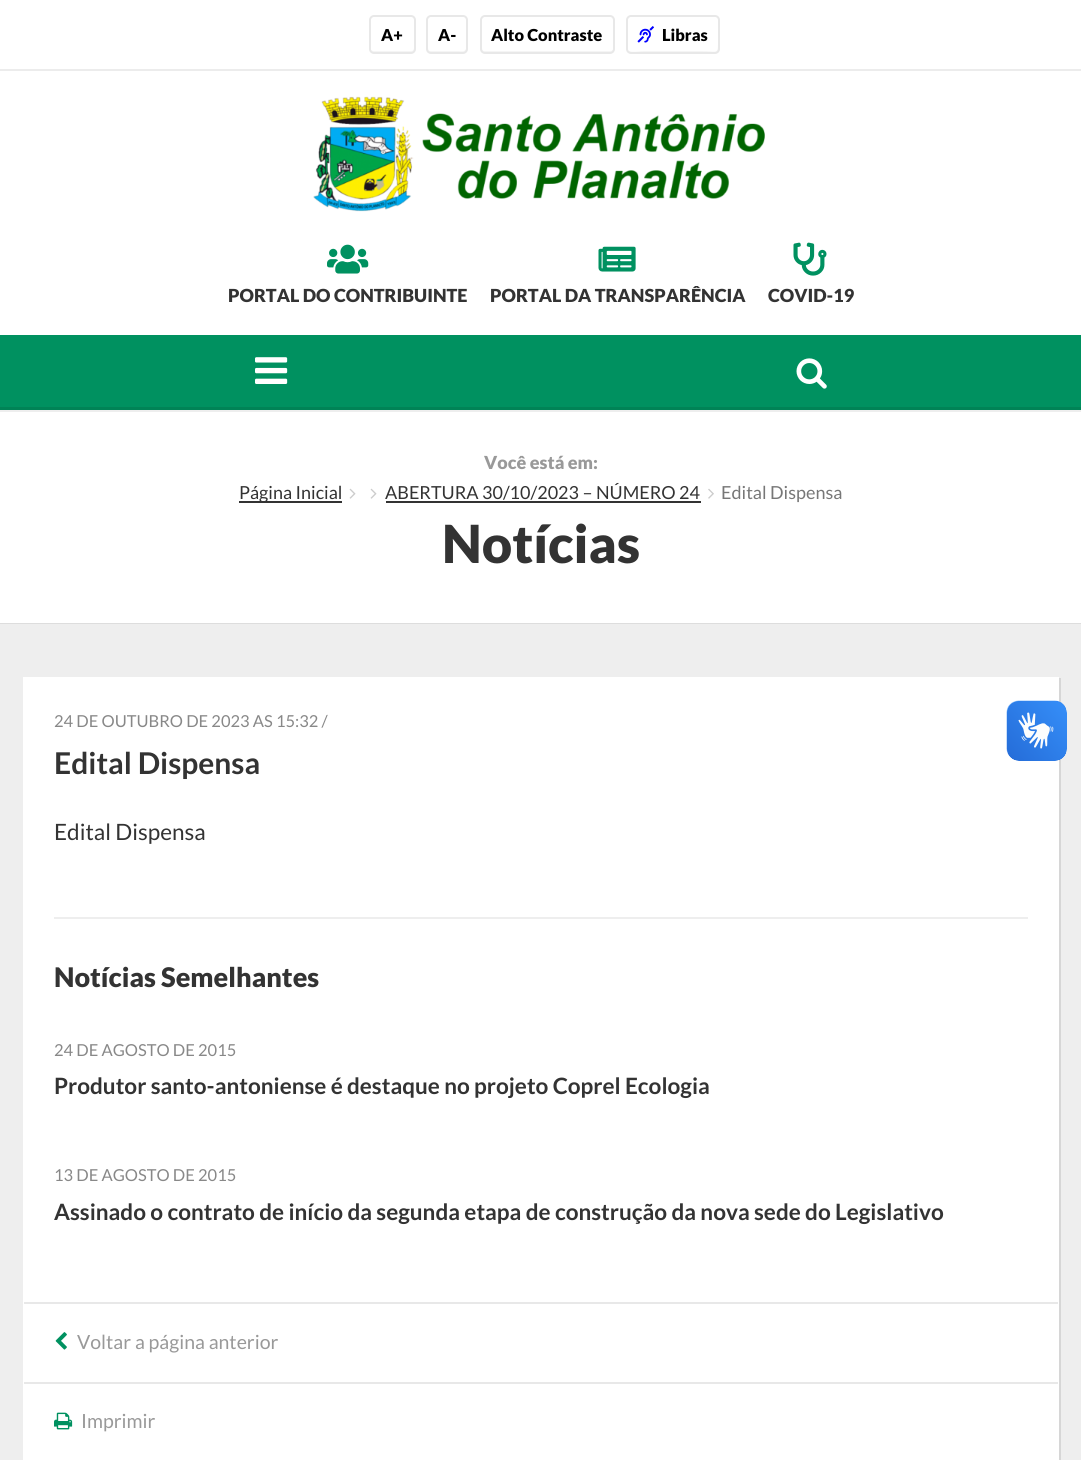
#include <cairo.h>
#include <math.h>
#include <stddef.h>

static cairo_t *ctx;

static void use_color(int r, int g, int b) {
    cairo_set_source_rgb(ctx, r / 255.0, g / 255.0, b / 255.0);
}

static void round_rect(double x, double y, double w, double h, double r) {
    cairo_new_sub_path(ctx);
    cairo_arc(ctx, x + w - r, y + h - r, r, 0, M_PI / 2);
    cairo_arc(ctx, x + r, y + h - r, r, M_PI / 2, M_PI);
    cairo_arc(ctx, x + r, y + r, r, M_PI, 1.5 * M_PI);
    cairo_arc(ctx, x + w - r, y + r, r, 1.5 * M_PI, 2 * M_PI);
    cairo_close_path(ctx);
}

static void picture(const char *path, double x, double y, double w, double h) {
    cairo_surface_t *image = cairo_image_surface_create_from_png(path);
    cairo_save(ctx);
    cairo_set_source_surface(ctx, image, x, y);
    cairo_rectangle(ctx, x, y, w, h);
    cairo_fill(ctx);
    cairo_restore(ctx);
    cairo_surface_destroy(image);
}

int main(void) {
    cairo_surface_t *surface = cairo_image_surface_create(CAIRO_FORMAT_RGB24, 1081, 1460);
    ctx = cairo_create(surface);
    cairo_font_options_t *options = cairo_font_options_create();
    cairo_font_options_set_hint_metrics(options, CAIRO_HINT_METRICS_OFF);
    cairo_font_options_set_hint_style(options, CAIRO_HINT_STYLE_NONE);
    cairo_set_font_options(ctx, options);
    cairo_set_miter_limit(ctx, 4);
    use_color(255, 255, 255);
    cairo_paint(ctx);
    use_color(236, 236, 236);
    cairo_rectangle(ctx, 0, 69, 1081, 2);
    cairo_fill(ctx);
    use_color(245, 245, 245);
    cairo_new_path(ctx);
    cairo_move_to(ctx, 371, 50);
    cairo_curve_to(ctx, 371, 52, 372, 53, 374, 53);
    cairo_line_to(ctx, 411, 53);
    cairo_curve_to(ctx, 413, 53, 414, 52, 414, 50);
    cairo_line_to(ctx, 414, 48);
    cairo_curve_to(ctx, 414, 50, 413, 51, 411, 51);
    cairo_line_to(ctx, 374, 51);
    cairo_curve_to(ctx, 373, 51, 372, 51, 371, 50);
    cairo_close_path(ctx);
    cairo_fill(ctx);
    round_rect(370, 16, 45, 37, 4);
    use_color(232, 232, 232);
    cairo_stroke(ctx);
    cairo_select_font_face(ctx, "Lato Black", CAIRO_FONT_SLANT_NORMAL, CAIRO_FONT_WEIGHT_NORMAL);
    cairo_set_font_size(ctx, 16.5);
    use_color(0, 0, 0);
    cairo_move_to(ctx, 381, 41);
    cairo_show_text(ctx, "A+");
    use_color(245, 245, 245);
    cairo_new_path(ctx);
    cairo_move_to(ctx, 428, 48);
    cairo_line_to(ctx, 428, 50);
    cairo_curve_to(ctx, 428, 51.5, 429.5, 53, 431, 53);
    cairo_line_to(ctx, 464, 53);
    cairo_curve_to(ctx, 465.5, 53, 467, 51.5, 467, 50);
    cairo_line_to(ctx, 467, 20);
    cairo_curve_to(ctx, 467, 19, 466.5, 18.5, 466, 18);
    cairo_line_to(ctx, 466, 48.5);
    cairo_line_to(ctx, 465.5, 50);
    cairo_curve_to(ctx, 464, 52, 458.5, 51, 458.5, 51);
    cairo_line_to(ctx, 429.5, 51);
    cairo_curve_to(ctx, 428.5, 50.5, 428, 49, 428, 48);
    cairo_close_path(ctx);
    cairo_fill(ctx);
    round_rect(427, 16, 40, 37, 4);
    use_color(232, 232, 232);
    cairo_stroke(ctx);
    use_color(0, 0, 0);
    cairo_move_to(ctx, 438, 41);
    cairo_show_text(ctx, "A-");
    use_color(245, 245, 245);
    cairo_new_path(ctx);
    cairo_move_to(ctx, 482, 48);
    cairo_line_to(ctx, 482, 50);
    cairo_curve_to(ctx, 482, 52, 483, 53, 485, 53);
    cairo_line_to(ctx, 611, 53);
    cairo_curve_to(ctx, 613, 53, 614, 52, 614, 50);
    cairo_line_to(ctx, 614, 48);
    cairo_curve_to(ctx, 614, 50, 612, 51, 610, 51);
    cairo_line_to(ctx, 484, 51);
    cairo_curve_to(ctx, 483, 51, 482, 50, 482, 48);
    cairo_close_path(ctx);
    cairo_fill(ctx);
    round_rect(481, 16, 133, 37, 4);
    use_color(232, 232, 232);
    cairo_stroke(ctx);
    use_color(0, 0, 0);
    cairo_move_to(ctx, 491, 41);
    cairo_show_text(ctx, "Alto Contraste");
    use_color(245, 245, 245);
    cairo_new_path(ctx);
    cairo_move_to(ctx, 627, 48);
    cairo_line_to(ctx, 627, 50);
    cairo_curve_to(ctx, 627, 52, 628, 53, 630, 53);
    cairo_line_to(ctx, 716, 53);
    cairo_curve_to(ctx, 718, 53, 719, 52, 719, 50);
    cairo_line_to(ctx, 719, 20);
    cairo_curve_to(ctx, 719, 19, 719, 18, 718, 18);
    cairo_line_to(ctx, 718, 43);
    cairo_curve_to(ctx, 718, 55, 717, 51, 702, 51);
    cairo_line_to(ctx, 644, 51);
    cairo_curve_to(ctx, 638, 51, 627, 54, 627, 48);
    cairo_close_path(ctx);
    cairo_fill(ctx);
    round_rect(627, 16, 92, 37, 4);
    use_color(232, 232, 232);
    cairo_stroke(ctx);
    picture("img1.png", 637, 26, 17, 17);
    use_color(0, 0, 0);
    cairo_move_to(ctx, 662, 41);
    cairo_show_text(ctx, "Libras");
    picture("img2.png", 313, 96, 452, 116);
    picture("img3.png", 327, 244, 42, 30);
    cairo_set_font_size(ctx, 18);
    use_color(51, 51, 51);
    cairo_move_to(ctx, 228, 302);
    cairo_show_text(ctx, "PORTAL DO CONTRIBUINTE");
    picture("img4.png", 598, 246, 38, 26);
    cairo_move_to(ctx, 490, 302);
    cairo_show_text(ctx, "PORTAL DA TRANSPARÊNCIA");
    picture("img5.png", 793, 242, 34, 34);
    cairo_move_to(ctx, 768, 302);
    cairo_show_text(ctx, "COVID-19");
    use_color(0, 145, 96);
    cairo_rectangle(ctx, 0, 335, 1081, 72);
    cairo_fill(ctx);
    use_color(0, 131, 86);
    cairo_rectangle(ctx, 0, 407, 1081, 3);
    cairo_fill(ctx);
    use_color(238, 238, 238);
    cairo_rectangle(ctx, 0, 410, 1081, 2);
    cairo_fill(ctx);
    picture("img6.png", 255, 357, 33, 27);
    picture("img7.png", 796, 358, 31, 31);
    use_color(221, 221, 221);
    cairo_rectangle(ctx, 0, 623, 1081, 1);
    cairo_fill(ctx);
    use_color(153, 153, 153);
    cairo_move_to(ctx, 484, 469);
    cairo_show_text(ctx, "Você está em:");
    use_color(51, 51, 51);
    cairo_rectangle(ctx, 239, 501, 103, 2);
    cairo_fill(ctx);
    cairo_select_font_face(ctx, "Lato", CAIRO_FONT_SLANT_NORMAL, CAIRO_FONT_WEIGHT_NORMAL);
    cairo_move_to(ctx, 239, 499);
    cairo_show_text(ctx, "Página Inicial");
    picture("img8.png", 349, 488, 7, 11);
    picture("img8.png", 370, 488, 7, 11);
    cairo_move_to(ctx, 385, 499);
    cairo_show_text(ctx, "ABERTURA 30/10/2023 – NÚMERO 24");
    cairo_rectangle(ctx, 386, 501, 315, 2);
    cairo_fill(ctx);
    picture("img9.png", 708, 488, 6, 11);
    use_color(119, 119, 119);
    cairo_move_to(ctx, 721, 499);
    cairo_show_text(ctx, "Edital Dispensa");
    cairo_select_font_face(ctx, "Lato Black", CAIRO_FONT_SLANT_NORMAL, CAIRO_FONT_WEIGHT_NORMAL);
    cairo_set_font_size(ctx, 52.5);
    use_color(51, 51, 51);
    cairo_move_to(ctx, 442, 563);
    cairo_show_text(ctx, "Notícias");
    use_color(238, 238, 238);
    cairo_rectangle(ctx, 0, 624, 1081, 836);
    cairo_fill(ctx);
    use_color(214, 214, 214);
    cairo_new_path(ctx);
    cairo_move_to(ctx, 24, 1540);
    cairo_line_to(ctx, 24, 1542);
    cairo_line_to(ctx, 1061, 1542);
    cairo_line_to(ctx, 1061, 678);
    cairo_line_to(ctx, 1059, 678);
    cairo_line_to(ctx, 1059, 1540);
    cairo_close_path(ctx);
    cairo_fill(ctx);
    use_color(255, 255, 255);
    cairo_rectangle(ctx, 23, 677, 1036, 783);
    cairo_fill(ctx);
    cairo_select_font_face(ctx, "Lato", CAIRO_FONT_SLANT_NORMAL, CAIRO_FONT_WEIGHT_NORMAL);
    cairo_set_font_size(ctx, 16.5);
    use_color(136, 136, 136);
    cairo_move_to(ctx, 54, 727);
    cairo_show_text(ctx, "24 DE OUTUBRO DE 2023 AS 15:32 /");
    cairo_select_font_face(ctx, "Lato", CAIRO_FONT_SLANT_NORMAL, CAIRO_FONT_WEIGHT_BOLD);
    cairo_set_font_size(ctx, 30);
    use_color(51, 51, 51);
    cairo_move_to(ctx, 54, 774);
    cairo_show_text(ctx, "Edital Dispensa");
    cairo_select_font_face(ctx, "Lato", CAIRO_FONT_SLANT_NORMAL, CAIRO_FONT_WEIGHT_NORMAL);
    cairo_set_font_size(ctx, 22.5);
    cairo_move_to(ctx, 54, 840);
    cairo_show_text(ctx, "Edital Dispensa");
    use_color(238, 238, 238);
    cairo_rectangle(ctx, 54, 917, 974, 2);
    cairo_fill(ctx);
    cairo_select_font_face(ctx, "Lato Black", CAIRO_FONT_SLANT_NORMAL, CAIRO_FONT_WEIGHT_NORMAL);
    cairo_set_font_size(ctx, 27);
    use_color(51, 51, 51);
    cairo_move_to(ctx, 54, 987);
    cairo_show_text(ctx, "Notícias Semelhantes");
    cairo_select_font_face(ctx, "Lato", CAIRO_FONT_SLANT_NORMAL, CAIRO_FONT_WEIGHT_NORMAL);
    cairo_set_font_size(ctx, 16.5);
    use_color(136, 136, 136);
    cairo_move_to(ctx, 54, 1056);
    cairo_show_text(ctx, "24 DE AGOSTO DE 2015");
    cairo_select_font_face(ctx, "Lato", CAIRO_FONT_SLANT_NORMAL, CAIRO_FONT_WEIGHT_BOLD);
    cairo_set_font_size(ctx, 22.5);
    use_color(51, 51, 51);
    cairo_move_to(ctx, 54, 1094);
    cairo_show_text(ctx, "Produtor santo-antoniense é destaque no projeto Coprel Ecologia");
    cairo_select_font_face(ctx, "Lato", CAIRO_FONT_SLANT_NORMAL, CAIRO_FONT_WEIGHT_NORMAL);
    cairo_set_font_size(ctx, 16.5);
    use_color(136, 136, 136);
    cairo_move_to(ctx, 54, 1181);
    cairo_show_text(ctx, "13 DE AGOSTO DE 2015");
    cairo_select_font_face(ctx, "Lato", CAIRO_FONT_SLANT_NORMAL, CAIRO_FONT_WEIGHT_BOLD);
    cairo_set_font_size(ctx, 22.5);
    use_color(51, 51, 51);
    cairo_move_to(ctx, 54, 1220);
    cairo_show_text(ctx, "Assinado o contrato de início da segunda etapa de construção da nova sede do Legislativo");
    use_color(232, 232, 232);
    cairo_rectangle(ctx, 24, 1302, 1034, 2);
    cairo_fill(ctx);
    cairo_rectangle(ctx, 24, 1382, 1034, 2);
    cairo_fill(ctx);
    picture("img10.png", 55, 1332, 12, 18);
    cairo_select_font_face(ctx, "Lato", CAIRO_FONT_SLANT_NORMAL, CAIRO_FONT_WEIGHT_NORMAL);
    cairo_set_font_size(ctx, 19.5);
    use_color(153, 153, 153);
    cairo_move_to(ctx, 77, 1349);
    cairo_show_text(ctx, "Voltar a página anterior");
    picture("img11.png", 54, 1412, 19, 18);
    cairo_move_to(ctx, 81, 1428);
    cairo_show_text(ctx, "Imprimir");
    picture("img12.png", 1006, 700, 61, 61);
    picture("img13.png", 1007, 701, 60, 60);
    cairo_surface_write_to_png(surface, "result.png");
    cairo_font_options_destroy(options);
    cairo_destroy(ctx);
    cairo_surface_destroy(surface);
    return 0;
}
